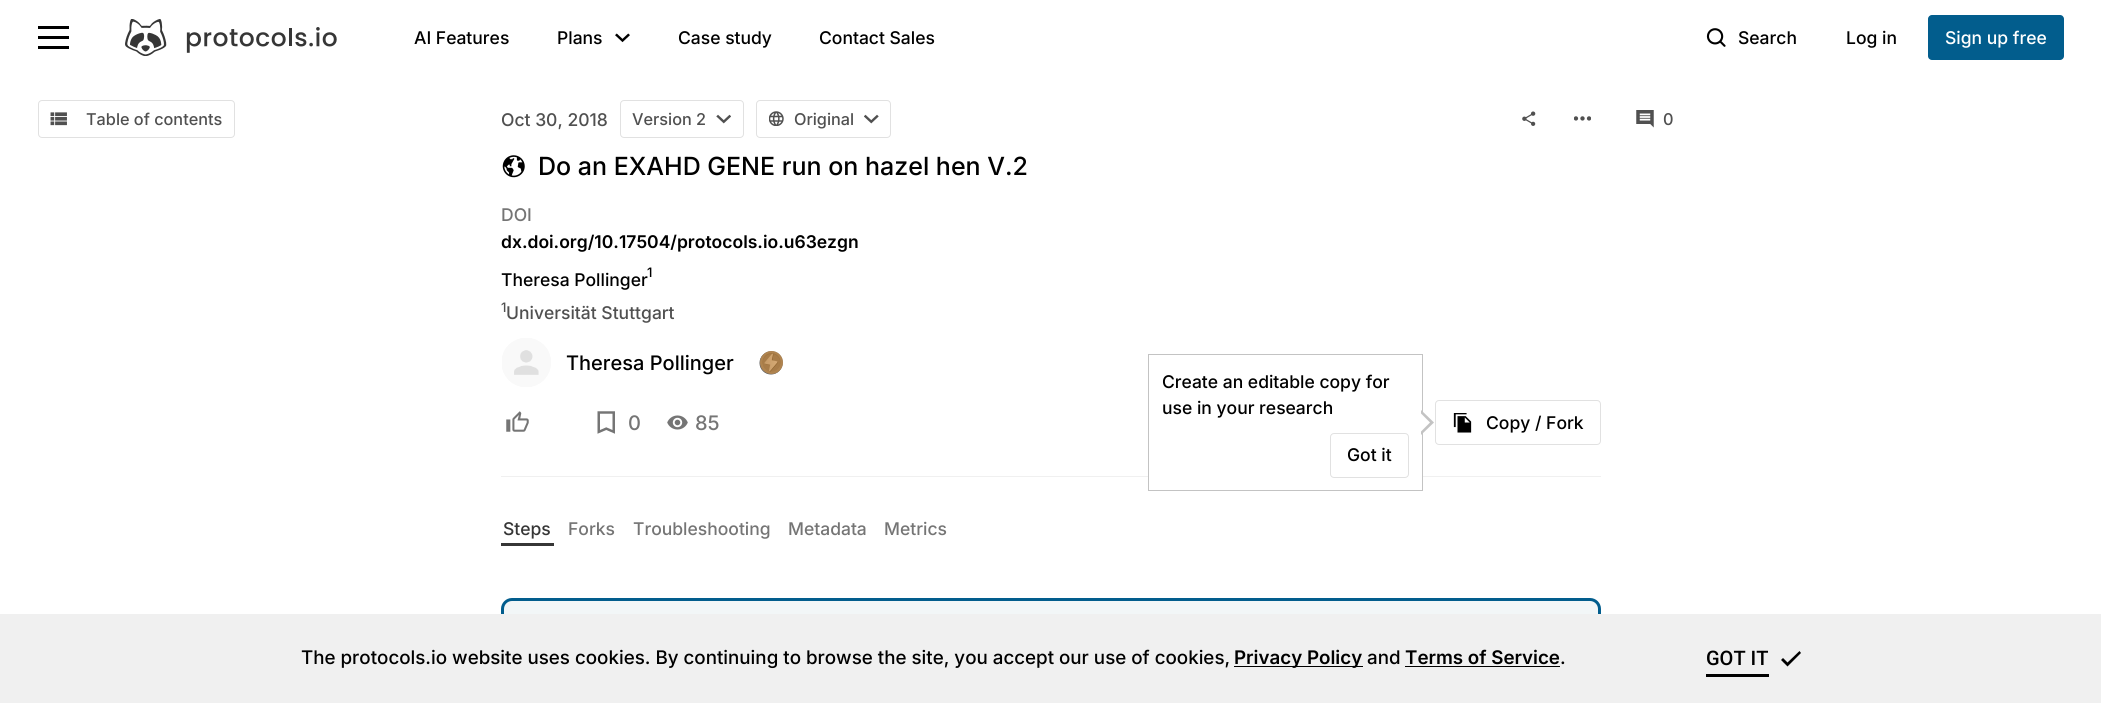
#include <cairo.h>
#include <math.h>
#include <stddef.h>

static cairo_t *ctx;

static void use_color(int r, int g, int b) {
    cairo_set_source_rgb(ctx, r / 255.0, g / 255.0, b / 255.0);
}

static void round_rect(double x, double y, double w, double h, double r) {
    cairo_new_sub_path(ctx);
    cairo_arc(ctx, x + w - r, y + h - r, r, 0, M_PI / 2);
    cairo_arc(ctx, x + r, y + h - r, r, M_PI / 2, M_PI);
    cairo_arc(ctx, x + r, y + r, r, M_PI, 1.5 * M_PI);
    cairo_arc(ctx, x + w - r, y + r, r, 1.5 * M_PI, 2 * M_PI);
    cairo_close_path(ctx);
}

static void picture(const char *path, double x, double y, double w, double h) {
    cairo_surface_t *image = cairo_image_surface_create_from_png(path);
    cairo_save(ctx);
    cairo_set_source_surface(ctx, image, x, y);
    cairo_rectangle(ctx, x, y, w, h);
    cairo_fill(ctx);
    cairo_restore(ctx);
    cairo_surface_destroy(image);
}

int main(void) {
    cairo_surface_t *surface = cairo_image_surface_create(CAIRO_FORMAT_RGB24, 2101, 703);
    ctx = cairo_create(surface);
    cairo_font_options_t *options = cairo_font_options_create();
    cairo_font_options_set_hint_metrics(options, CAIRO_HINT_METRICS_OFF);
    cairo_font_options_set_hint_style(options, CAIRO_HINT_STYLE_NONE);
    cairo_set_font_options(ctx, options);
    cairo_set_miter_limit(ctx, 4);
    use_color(255, 255, 255);
    cairo_paint(ctx);
    use_color(0, 0, 0);
    cairo_rectangle(ctx, 38, 26, 31, 3);
    cairo_fill(ctx);
    cairo_rectangle(ctx, 38, 36, 31, 3);
    cairo_fill(ctx);
    cairo_rectangle(ctx, 38, 46, 31, 3);
    cairo_fill(ctx);
    picture("img1.png", 125, 19, 212, 37);
    cairo_select_font_face(ctx, "Inter Medium", CAIRO_FONT_SLANT_NORMAL, CAIRO_FONT_WEIGHT_NORMAL);
    cairo_set_font_size(ctx, 17.5);
    cairo_move_to(ctx, 414, 44);
    cairo_show_text(ctx, "AI Features");
    cairo_move_to(ctx, 557, 44);
    cairo_show_text(ctx, "Plans");
    picture("img2.png", 615, 33, 15, 10);
    cairo_move_to(ctx, 678, 44);
    cairo_show_text(ctx, "Case study");
    cairo_move_to(ctx, 819, 44);
    cairo_show_text(ctx, "Contact Sales");
    picture("img3.png", 1706, 28, 20, 19);
    cairo_move_to(ctx, 1738, 44);
    cairo_show_text(ctx, "Search");
    cairo_move_to(ctx, 1846, 44);
    cairo_show_text(ctx, "Log in");
    use_color(2, 93, 141);
    round_rect(1928, 15, 136, 45, 4);
    cairo_fill(ctx);
    use_color(255, 255, 255);
    cairo_move_to(ctx, 1945, 44);
    cairo_show_text(ctx, "Sign up free");
    use_color(240, 240, 240);
    cairo_rectangle(ctx, 501, 476, 1100, 1);
    cairo_fill(ctx);
    round_rect(38.5, 100.5, 196, 37, 3.5);
    use_color(225, 225, 225);
    cairo_set_line_width(ctx, 1);
    cairo_stroke(ctx);
    picture("img4.png", 50, 112, 17, 14);
    cairo_set_font_size(ctx, 16.25);
    use_color(80, 80, 80);
    cairo_move_to(ctx, 86, 125);
    cairo_show_text(ctx, "Table of contents");
    picture("img5.png", 1636, 110, 18, 18);
    cairo_move_to(ctx, 1663, 125);
    cairo_show_text(ctx, "0");
    cairo_set_font_size(ctx, 17.5);
    cairo_move_to(ctx, 501, 126);
    cairo_show_text(ctx, "Oct 30, 2018");
    round_rect(620.5, 100.5, 123, 37, 3.5);
    use_color(225, 225, 225);
    cairo_stroke(ctx);
    cairo_set_font_size(ctx, 16.25);
    use_color(80, 80, 80);
    cairo_move_to(ctx, 632, 125);
    cairo_show_text(ctx, "Version 2");
    picture("img6.png", 716, 114, 15, 10);
    round_rect(756.5, 100.5, 134, 37, 3.5);
    use_color(225, 225, 225);
    cairo_stroke(ctx);
    picture("img7.png", 769, 111, 15, 15);
    use_color(80, 80, 80);
    cairo_move_to(ctx, 794, 125);
    cairo_show_text(ctx, "Original");
    picture("img8.png", 864, 114, 15, 10);
    picture("img9.png", 1522, 111, 14, 15);
    picture("img10.png", 1574, 116, 17, 5);
    picture("img11.png", 502, 155, 23, 23);
    cairo_set_font_size(ctx, 25);
    use_color(0, 0, 0);
    cairo_move_to(ctx, 538, 175);
    cairo_show_text(ctx, "Do an EXAHD GENE run on hazel hen V.2");
    cairo_set_font_size(ctx, 17.5);
    use_color(117, 117, 117);
    cairo_move_to(ctx, 501, 221);
    cairo_show_text(ctx, "DOI");
    cairo_select_font_face(ctx, "Inter SemiBold", CAIRO_FONT_SLANT_NORMAL, CAIRO_FONT_WEIGHT_NORMAL);
    use_color(0, 0, 0);
    cairo_move_to(ctx, 501, 248);
    cairo_show_text(ctx, "dx.doi.org/10.17504/protocols.io.u63ezgn");
    cairo_select_font_face(ctx, "Inter Medium", CAIRO_FONT_SLANT_NORMAL, CAIRO_FONT_WEIGHT_NORMAL);
    cairo_move_to(ctx, 501, 286);
    cairo_show_text(ctx, "Theresa Pollinger");
    cairo_set_font_size(ctx, 13);
    cairo_move_to(ctx, 647, 277);
    cairo_show_text(ctx, "1");
    use_color(80, 80, 80);
    cairo_move_to(ctx, 501, 312);
    cairo_show_text(ctx, "1");
    cairo_set_font_size(ctx, 17.5);
    cairo_move_to(ctx, 506, 319);
    cairo_show_text(ctx, "Universität Stuttgart");
    picture("img12.png", 502, 338, 49, 49);
    cairo_set_font_size(ctx, 20);
    use_color(0, 0, 0);
    cairo_move_to(ctx, 566, 370);
    cairo_show_text(ctx, "Theresa Pollinger");
    picture("img13.png", 759, 351, 24, 24);
    picture("img14.png", 506, 411, 23, 21);
    picture("img15.png", 597, 411, 18, 23);
    use_color(117, 117, 117);
    cairo_move_to(ctx, 628, 430);
    cairo_show_text(ctx, "0");
    picture("img16.png", 667, 415, 21, 15);
    cairo_move_to(ctx, 695, 430);
    cairo_show_text(ctx, "85");
    use_color(255, 255, 255);
    cairo_rectangle(ctx, 1149, 476, 273, 1);
    cairo_fill(ctx);
    cairo_rectangle(ctx, 1148.5, 354.5, 274, 136);
    use_color(195, 195, 195);
    cairo_stroke(ctx);
    cairo_set_font_size(ctx, 17.5);
    use_color(0, 0, 0);
    cairo_move_to(ctx, 1162, 388);
    cairo_show_text(ctx, "Create an editable copy for");
    cairo_move_to(ctx, 1162, 414);
    cairo_show_text(ctx, "use in your research");
    use_color(195, 195, 195);
    cairo_new_path(ctx);
    cairo_move_to(ctx, 1421, 435);
    cairo_line_to(ctx, 1421, 410);
    cairo_line_to(ctx, 1434, 422.5);
    cairo_close_path(ctx);
    cairo_fill(ctx);
    use_color(255, 255, 255);
    cairo_new_path(ctx);
    cairo_move_to(ctx, 1420, 432.5);
    cairo_line_to(ctx, 1420, 412.5);
    cairo_line_to(ctx, 1430, 422.5);
    cairo_close_path(ctx);
    cairo_fill(ctx);
    round_rect(1330.5, 433.5, 78, 44, 3.5);
    use_color(225, 225, 225);
    cairo_stroke(ctx);
    use_color(0, 0, 0);
    cairo_move_to(ctx, 1347, 461);
    cairo_show_text(ctx, "Got it");
    round_rect(1435.5, 400.5, 165, 44, 3.5);
    use_color(225, 225, 225);
    cairo_stroke(ctx);
    picture("img17.png", 1453, 413, 19, 20);
    use_color(0, 0, 0);
    cairo_move_to(ctx, 1486, 429);
    cairo_show_text(ctx, "Copy / Fork");
    use_color(54, 54, 54);
    cairo_move_to(ctx, 503, 535);
    cairo_show_text(ctx, "Steps");
    use_color(117, 117, 117);
    cairo_move_to(ctx, 568, 535);
    cairo_show_text(ctx, "Forks");
    cairo_move_to(ctx, 633, 535);
    cairo_show_text(ctx, "Troubleshooting");
    cairo_move_to(ctx, 788, 535);
    cairo_show_text(ctx, "Metadata");
    cairo_move_to(ctx, 884, 535);
    cairo_show_text(ctx, "Metrics");
    use_color(54, 54, 54);
    cairo_rectangle(ctx, 501, 543, 53, 3);
    cairo_fill(ctx);
    use_color(242, 246, 247);
    cairo_new_path(ctx);
    cairo_move_to(ctx, 512, 598);
    cairo_line_to(ctx, 1590, 598);
    cairo_curve_to(ctx, 1596, 598, 1601, 603, 1601, 609);
    cairo_line_to(ctx, 1601, 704);
    cairo_line_to(ctx, 501, 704);
    cairo_line_to(ctx, 501, 609);
    cairo_curve_to(ctx, 501, 603, 506, 598, 512, 598);
    cairo_close_path(ctx);
    cairo_fill(ctx);
    round_rect(502.5, 599.5, 1097, 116, 9.5);
    use_color(2, 93, 141);
    cairo_set_line_width(ctx, 3);
    cairo_stroke(ctx);
    use_color(240, 240, 240);
    cairo_rectangle(ctx, 0, 614, 2101, 89);
    cairo_fill(ctx);
    cairo_set_font_size(ctx, 18.75);
    use_color(0, 0, 0);
    cairo_move_to(ctx, 301, 664);
    cairo_show_text(ctx, "The protocols.io website uses cookies. By continuing to browse the site, you accept our use of cookies,");
    cairo_rectangle(ctx, 1234, 666, 129, 1);
    cairo_fill(ctx);
    cairo_select_font_face(ctx, "Inter SemiBold", CAIRO_FONT_SLANT_NORMAL, CAIRO_FONT_WEIGHT_NORMAL);
    cairo_move_to(ctx, 1234, 664);
    cairo_show_text(ctx, "Privacy Policy");
    cairo_select_font_face(ctx, "Inter Medium", CAIRO_FONT_SLANT_NORMAL, CAIRO_FONT_WEIGHT_NORMAL);
    cairo_move_to(ctx, 1367, 664);
    cairo_show_text(ctx, "and");
    cairo_select_font_face(ctx, "Inter SemiBold", CAIRO_FONT_SLANT_NORMAL, CAIRO_FONT_WEIGHT_NORMAL);
    cairo_move_to(ctx, 1405, 664);
    cairo_show_text(ctx, "Terms of Service");
    cairo_rectangle(ctx, 1405, 666, 155, 1);
    cairo_fill(ctx);
    cairo_select_font_face(ctx, "Inter Medium", CAIRO_FONT_SLANT_NORMAL, CAIRO_FONT_WEIGHT_NORMAL);
    cairo_move_to(ctx, 1560, 664);
    cairo_show_text(ctx, ".");
    cairo_select_font_face(ctx, "Roboto Medium", CAIRO_FONT_SLANT_NORMAL, CAIRO_FONT_WEIGHT_NORMAL);
    cairo_set_font_size(ctx, 20);
    cairo_move_to(ctx, 1706, 665);
    cairo_show_text(ctx, "GOT IT");
    cairo_rectangle(ctx, 1706, 674, 63, 3);
    cairo_fill(ctx);
    cairo_new_path(ctx);
    cairo_move_to(ctx, 1801, 653);
    cairo_line_to(ctx, 1799.5, 651);
    cairo_line_to(ctx, 1787.5, 662.5);
    cairo_line_to(ctx, 1783, 658);
    cairo_line_to(ctx, 1781, 660);
    cairo_line_to(ctx, 1787.5, 666.5);
    cairo_close_path(ctx);
    cairo_fill(ctx);
    cairo_surface_write_to_png(surface, "result.png");
    cairo_font_options_destroy(options);
    cairo_destroy(ctx);
    cairo_surface_destroy(surface);
    return 0;
}
